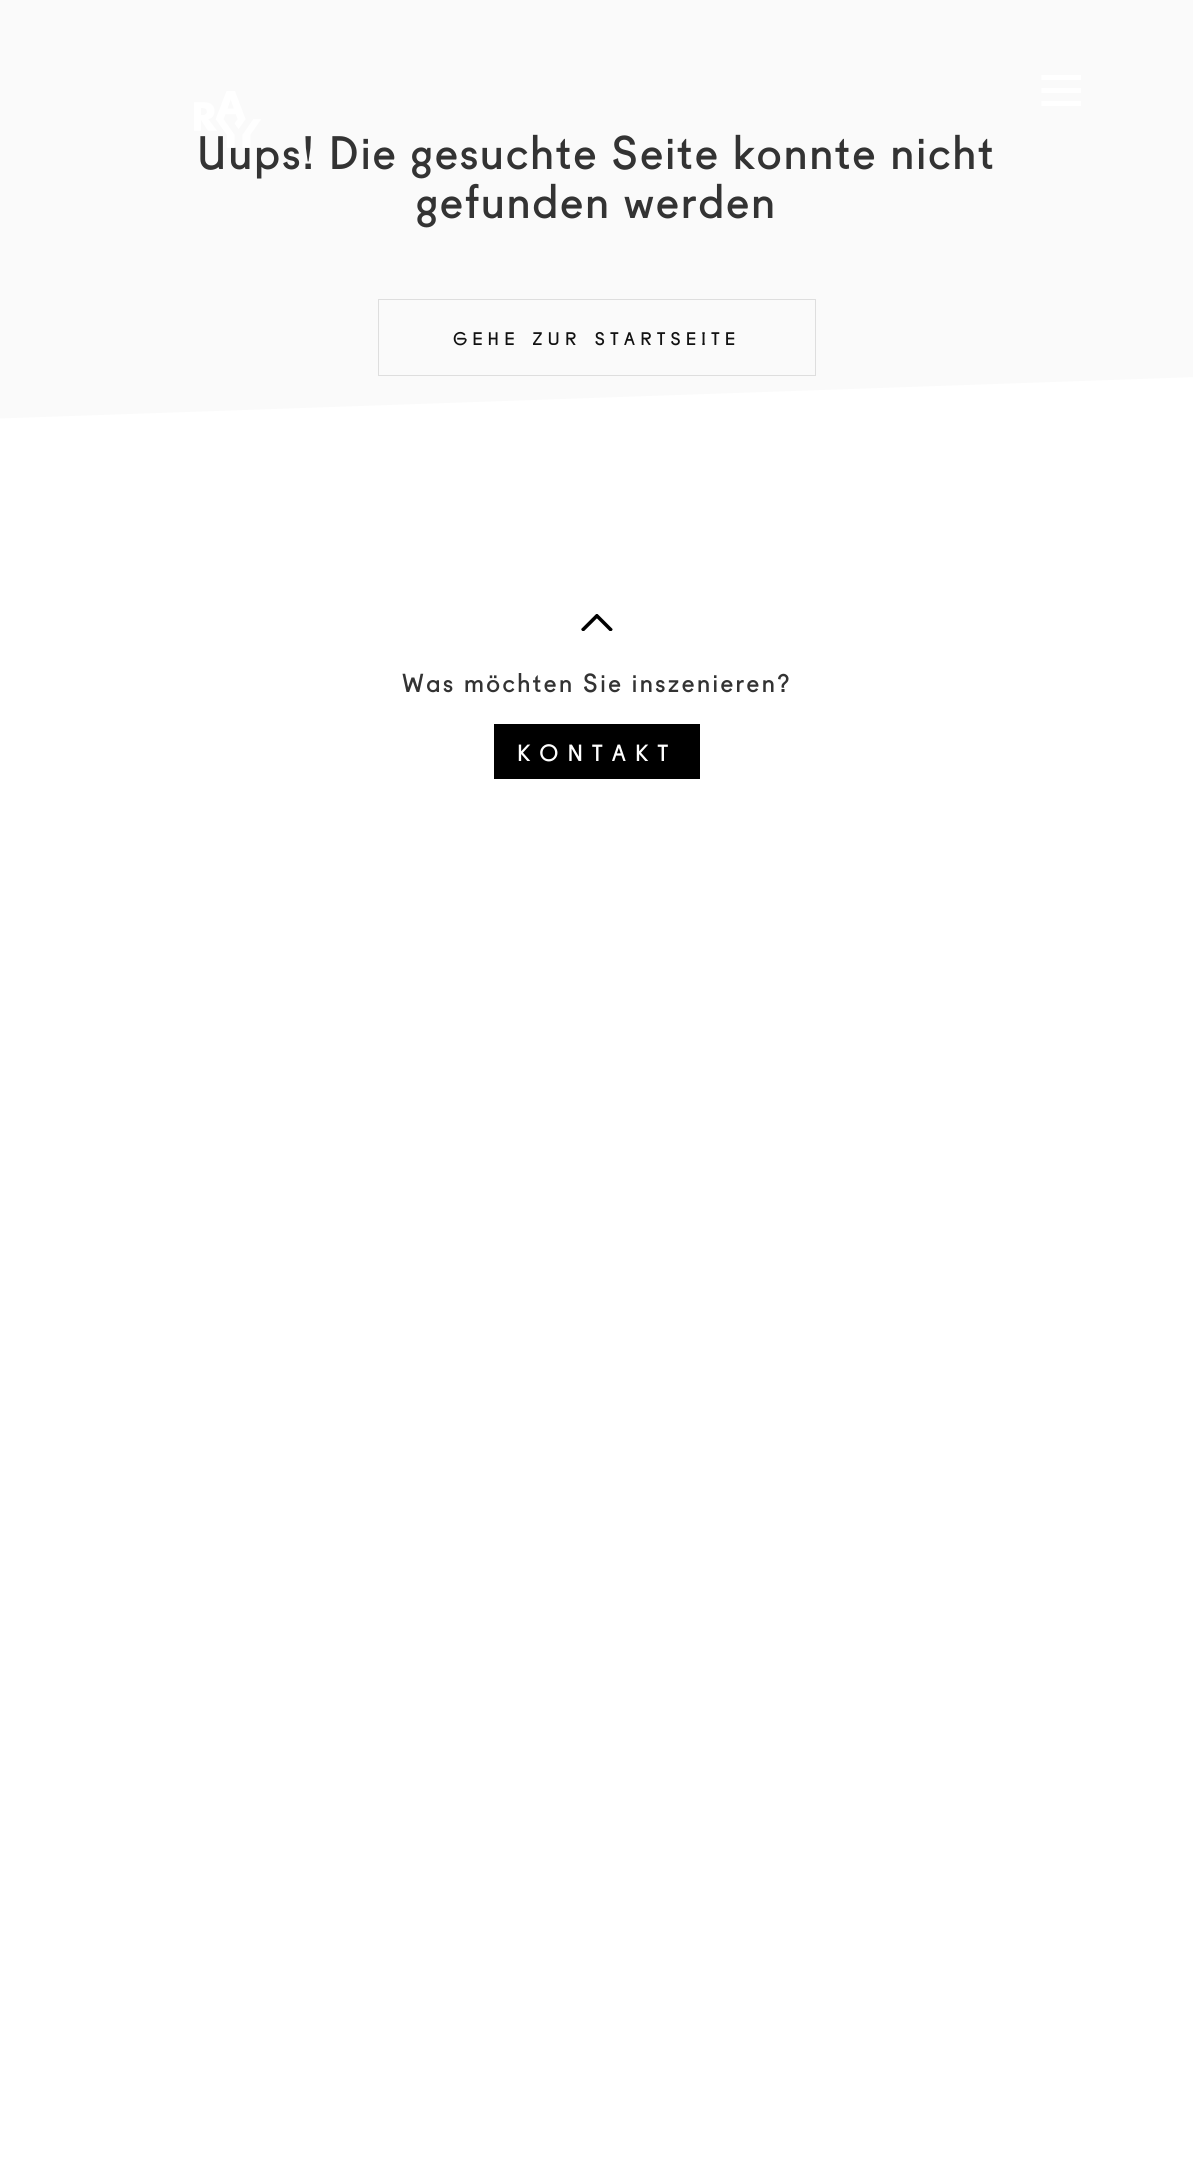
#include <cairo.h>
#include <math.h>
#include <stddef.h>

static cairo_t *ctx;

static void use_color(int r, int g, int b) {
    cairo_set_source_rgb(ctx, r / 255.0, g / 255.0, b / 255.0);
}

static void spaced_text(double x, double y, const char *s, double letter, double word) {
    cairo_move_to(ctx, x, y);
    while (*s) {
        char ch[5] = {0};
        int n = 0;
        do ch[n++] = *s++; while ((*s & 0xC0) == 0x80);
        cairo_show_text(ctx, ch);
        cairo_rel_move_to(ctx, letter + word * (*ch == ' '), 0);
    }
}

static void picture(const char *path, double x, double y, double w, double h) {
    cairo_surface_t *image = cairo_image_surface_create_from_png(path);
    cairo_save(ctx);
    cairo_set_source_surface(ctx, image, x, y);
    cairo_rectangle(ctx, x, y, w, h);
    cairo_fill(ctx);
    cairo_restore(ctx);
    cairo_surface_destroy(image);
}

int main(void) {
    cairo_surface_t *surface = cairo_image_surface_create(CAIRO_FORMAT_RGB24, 1193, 2166);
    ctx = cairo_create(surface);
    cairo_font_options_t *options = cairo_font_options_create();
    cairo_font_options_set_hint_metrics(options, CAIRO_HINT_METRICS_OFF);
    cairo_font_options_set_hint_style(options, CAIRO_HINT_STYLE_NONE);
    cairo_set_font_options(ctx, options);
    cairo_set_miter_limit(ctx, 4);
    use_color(255, 255, 255);
    cairo_paint(ctx);
    use_color(250, 250, 250);
    cairo_rectangle(ctx, 0, 0, 1193, 419);
    cairo_fill(ctx);
    cairo_select_font_face(ctx, "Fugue", CAIRO_FONT_SLANT_NORMAL, CAIRO_FONT_WEIGHT_NORMAL);
    cairo_set_font_size(ctx, 45);
    use_color(51, 51, 51);
    spaced_text(197, 169, "Uups! Die gesuchte Seite konnte nicht", 2.25, 0);
    picture("img1.png", 194, 91, 67, 57);
    use_color(255, 255, 255);
    cairo_new_path(ctx);
    cairo_move_to(ctx, 1041.5, 75);
    cairo_line_to(ctx, 1081, 75);
    cairo_line_to(ctx, 1081, 80);
    cairo_line_to(ctx, 1041.5, 80);
    cairo_close_path(ctx);
    cairo_move_to(ctx, 1041.5, 88);
    cairo_line_to(ctx, 1081, 88);
    cairo_line_to(ctx, 1081, 93);
    cairo_line_to(ctx, 1041.5, 93);
    cairo_close_path(ctx);
    cairo_move_to(ctx, 1041.5, 101);
    cairo_line_to(ctx, 1081, 101);
    cairo_line_to(ctx, 1081, 106);
    cairo_line_to(ctx, 1041.5, 106);
    cairo_close_path(ctx);
    cairo_fill(ctx);
    use_color(51, 51, 51);
    spaced_text(416, 218, "gefunden werden", 2.25, 0);
    cairo_rectangle(ctx, 378.5, 299.5, 437, 76);
    use_color(222, 222, 222);
    cairo_set_line_width(ctx, 1);
    cairo_stroke(ctx);
    cairo_select_font_face(ctx, "Fugue SemiBold", CAIRO_FONT_SLANT_NORMAL, CAIRO_FONT_WEIGHT_NORMAL);
    cairo_set_font_size(ctx, 17.5);
    use_color(18, 18, 18);
    spaced_text(453, 345, "GEHE ZUR STARTSEITE", 5.25, 0);
    use_color(255, 255, 255);
    cairo_new_path(ctx);
    cairo_move_to(ctx, -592, 439);
    cairo_line_to(ctx, 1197, 377);
    cairo_line_to(ctx, 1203, 526);
    cairo_line_to(ctx, -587, 589);
    cairo_close_path(ctx);
    cairo_fill(ctx);
    picture("img2.png", 581, 614, 32, 17);
    cairo_select_font_face(ctx, "Fugue", CAIRO_FONT_SLANT_NORMAL, CAIRO_FONT_WEIGHT_NORMAL);
    cairo_set_font_size(ctx, 25);
    use_color(51, 51, 51);
    spaced_text(402, 692, "Was möchten Sie inszenieren?", 2.5, 0);
    use_color(0, 0, 0);
    cairo_rectangle(ctx, 494, 724, 206, 55);
    cairo_fill(ctx);
    cairo_select_font_face(ctx, "Fugue SemiBold", CAIRO_FONT_SLANT_NORMAL, CAIRO_FONT_WEIGHT_NORMAL);
    cairo_set_font_size(ctx, 22.5);
    use_color(255, 255, 255);
    spaced_text(517, 761, "KONTAKT", 9, 0);
    cairo_surface_write_to_png(surface, "result.png");
    cairo_font_options_destroy(options);
    cairo_destroy(ctx);
    cairo_surface_destroy(surface);
    return 0;
}
